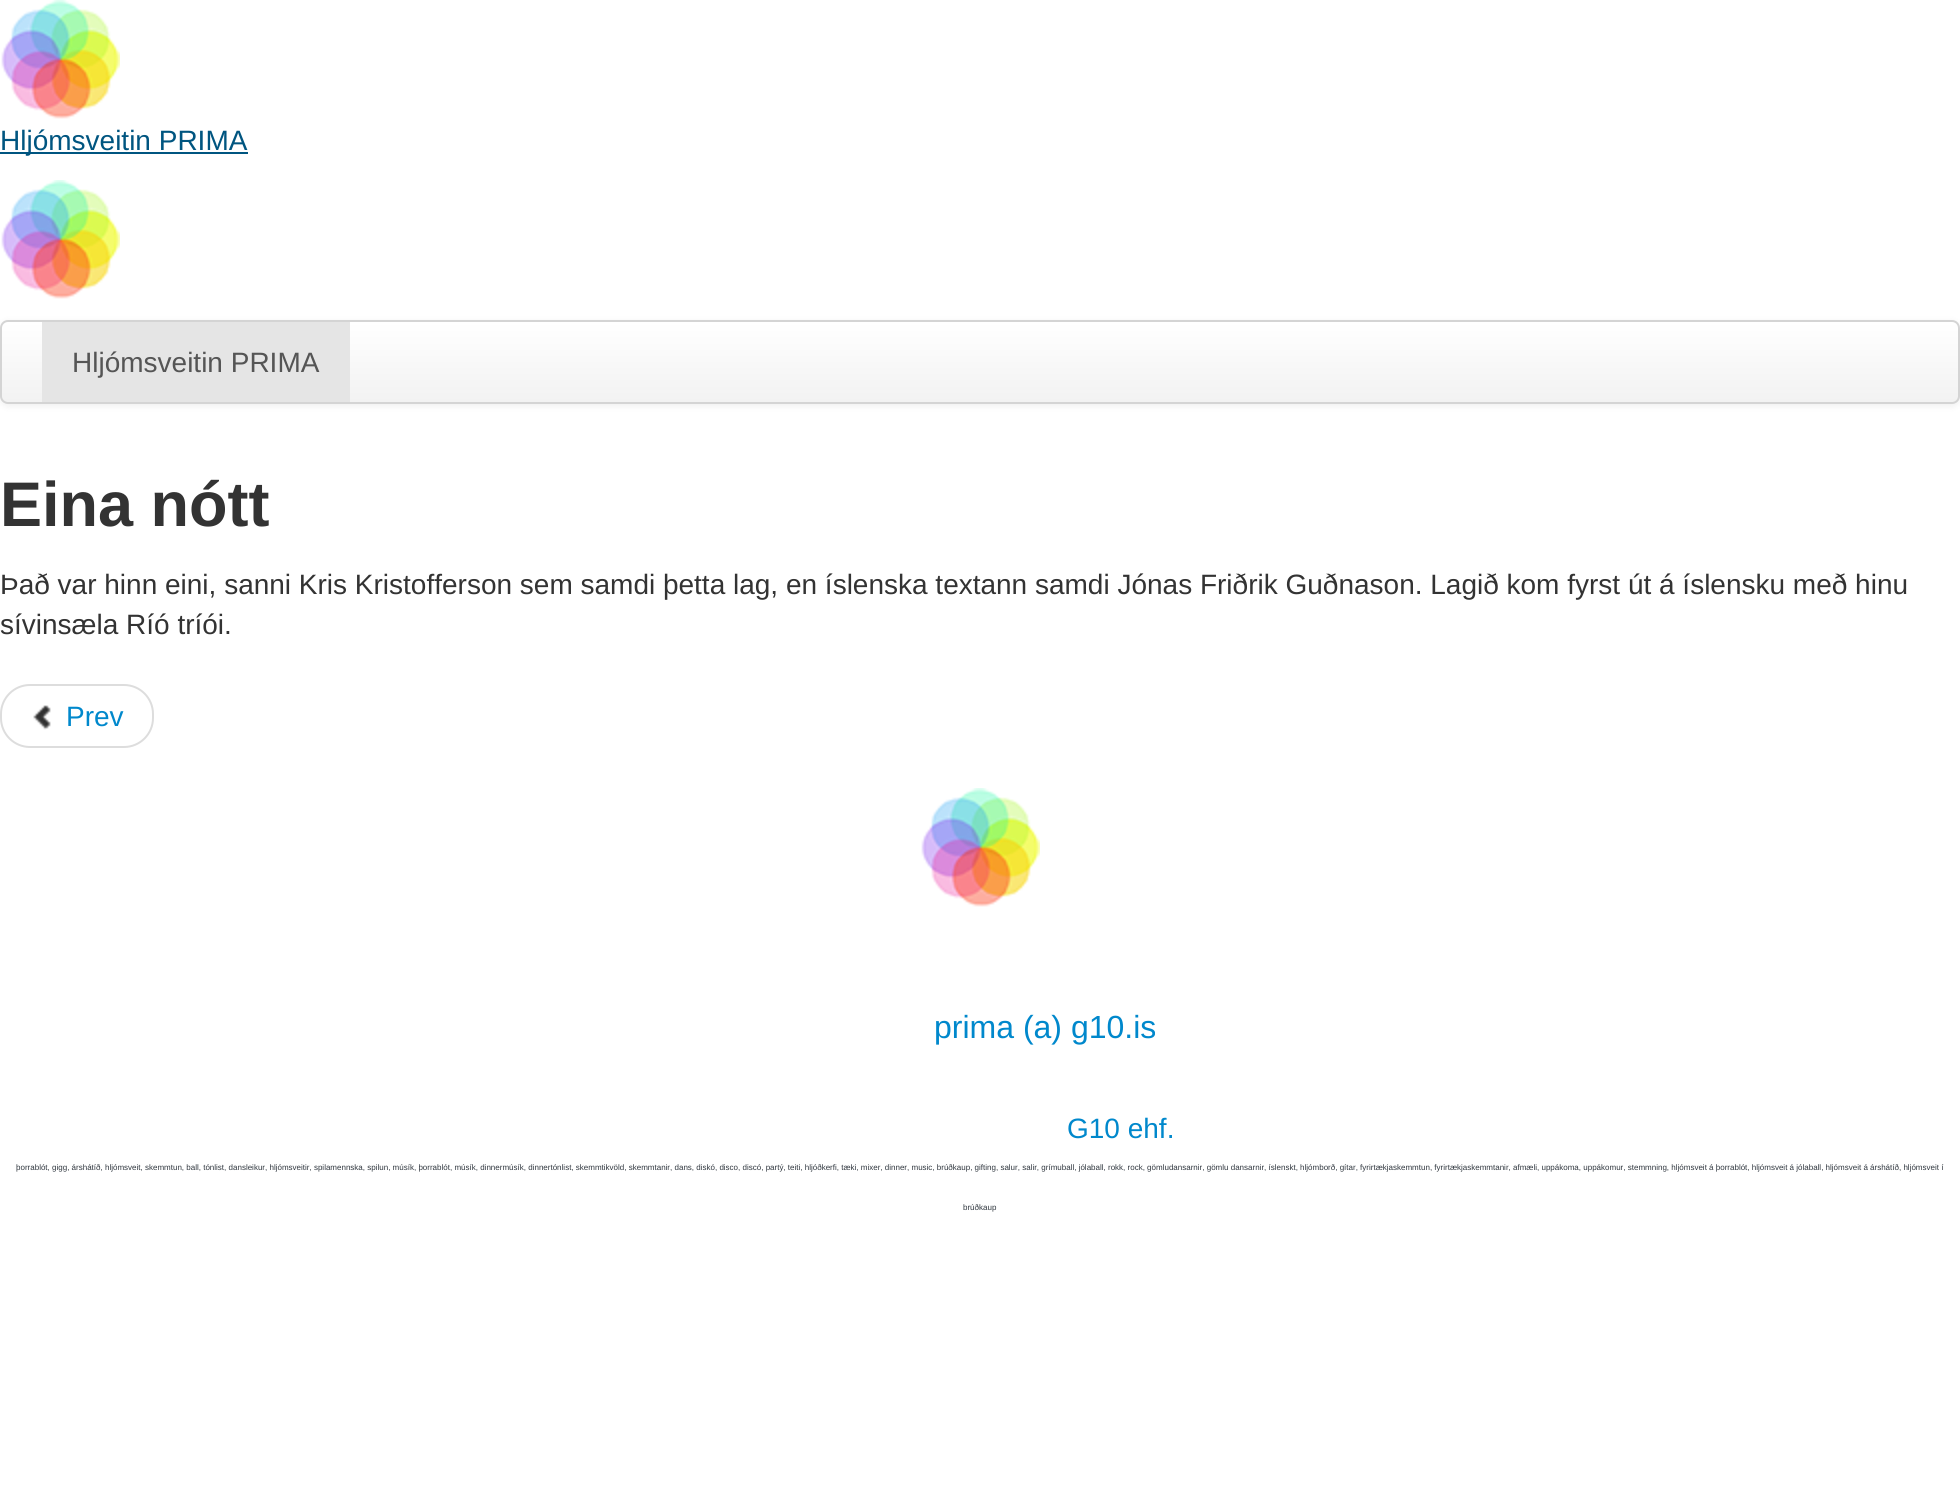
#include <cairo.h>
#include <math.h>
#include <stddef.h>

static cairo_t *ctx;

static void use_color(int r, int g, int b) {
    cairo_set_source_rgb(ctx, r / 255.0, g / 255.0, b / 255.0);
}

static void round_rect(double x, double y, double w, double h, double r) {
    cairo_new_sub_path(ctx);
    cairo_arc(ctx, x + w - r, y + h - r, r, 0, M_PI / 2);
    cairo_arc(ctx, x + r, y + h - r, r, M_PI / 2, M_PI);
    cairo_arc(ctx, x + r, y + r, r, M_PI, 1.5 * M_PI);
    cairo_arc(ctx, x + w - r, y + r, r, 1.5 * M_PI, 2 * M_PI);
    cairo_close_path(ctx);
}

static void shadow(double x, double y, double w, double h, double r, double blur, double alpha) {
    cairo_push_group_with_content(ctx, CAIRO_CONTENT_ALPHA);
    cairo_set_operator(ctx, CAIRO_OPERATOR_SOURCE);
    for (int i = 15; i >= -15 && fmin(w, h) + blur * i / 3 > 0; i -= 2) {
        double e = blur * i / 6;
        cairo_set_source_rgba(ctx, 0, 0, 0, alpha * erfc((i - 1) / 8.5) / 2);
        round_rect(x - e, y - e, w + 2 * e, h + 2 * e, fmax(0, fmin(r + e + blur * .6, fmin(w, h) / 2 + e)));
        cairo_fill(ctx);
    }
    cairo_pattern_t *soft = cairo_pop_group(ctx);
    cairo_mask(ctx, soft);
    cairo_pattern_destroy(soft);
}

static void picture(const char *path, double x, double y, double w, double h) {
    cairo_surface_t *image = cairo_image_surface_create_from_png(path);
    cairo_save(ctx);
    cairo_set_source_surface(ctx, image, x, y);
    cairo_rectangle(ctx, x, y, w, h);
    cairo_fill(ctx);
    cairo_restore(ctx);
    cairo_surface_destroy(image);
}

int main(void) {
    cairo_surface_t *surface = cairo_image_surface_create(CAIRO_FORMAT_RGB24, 1960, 1487);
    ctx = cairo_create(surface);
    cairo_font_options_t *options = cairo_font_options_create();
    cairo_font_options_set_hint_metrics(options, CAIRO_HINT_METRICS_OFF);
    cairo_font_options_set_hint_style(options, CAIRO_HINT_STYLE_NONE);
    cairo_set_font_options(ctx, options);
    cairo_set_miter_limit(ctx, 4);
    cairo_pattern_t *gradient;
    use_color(255, 255, 255);
    cairo_paint(ctx);
    picture("img1.png", 1, 0, 119, 119);
    use_color(0, 85, 128);
    cairo_rectangle(ctx, 0, 152, 248, 2);
    cairo_fill(ctx);
    cairo_select_font_face(ctx, "Liberation Sans", CAIRO_FONT_SLANT_NORMAL, CAIRO_FONT_WEIGHT_NORMAL);
    cairo_set_font_size(ctx, 28);
    cairo_move_to(ctx, 0, 150);
    cairo_show_text(ctx, "Hljómsveitin PRIMA");
    picture("img1.png", 1, 180, 119, 119);
    use_color(0, 0, 0);
    shadow(0, 322, 1960, 84, 8, 4, 0.07);
    cairo_save(ctx);
    round_rect(0, 320, 1960, 84, 8);
    cairo_clip(ctx);
    gradient = cairo_pattern_create_linear(980, 322, 980, 402);
    cairo_pattern_add_color_stop_rgba(gradient, 0, 1, 1, 1, 1);
    cairo_pattern_add_color_stop_rgba(gradient, 1, 0.949, 0.949, 0.949, 1);
    cairo_set_source(ctx, gradient);
    cairo_pattern_destroy(gradient);
    cairo_rectangle(ctx, 0, 322, 1960, 80);
    cairo_fill(ctx);
    cairo_restore(ctx);
    round_rect(1, 321, 1958, 82, 7);
    use_color(212, 212, 212);
    cairo_stroke(ctx);
    use_color(229, 229, 229);
    cairo_rectangle(ctx, 42, 322, 308, 80);
    cairo_fill(ctx);
    use_color(85, 85, 85);
    cairo_move_to(ctx, 72, 372);
    cairo_show_text(ctx, "Hljómsveitin PRIMA");
    cairo_select_font_face(ctx, "Liberation Sans", CAIRO_FONT_SLANT_NORMAL, CAIRO_FONT_WEIGHT_BOLD);
    cairo_set_font_size(ctx, 63);
    use_color(51, 51, 51);
    cairo_move_to(ctx, 0, 526);
    cairo_show_text(ctx, "Eina nótt");
    cairo_select_font_face(ctx, "Liberation Sans", CAIRO_FONT_SLANT_NORMAL, CAIRO_FONT_WEIGHT_NORMAL);
    cairo_set_font_size(ctx, 28);
    cairo_move_to(ctx, 0, 594);
    cairo_show_text(ctx, "Það var hinn eini, sanni Kris Kristofferson sem samdi þetta lag, en íslenska textann samdi Jónas Friðrik Guðnason. Lagið kom fyrst út á íslensku með hinu");
    cairo_move_to(ctx, 0, 634);
    cairo_show_text(ctx, "sívinsæla Ríó tríói.");
    round_rect(1, 685, 152, 62, 29);
    use_color(221, 221, 221);
    cairo_stroke(ctx);
    picture("img2.png", 33, 705, 18, 25);
    use_color(0, 136, 204);
    cairo_move_to(ctx, 66, 726);
    cairo_show_text(ctx, "Prev");
    picture("img1.png", 921, 788, 119, 119);
    cairo_set_font_size(ctx, 32);
    cairo_move_to(ctx, 934, 1038);
    cairo_show_text(ctx, "prima (a) g10.is");
    cairo_set_font_size(ctx, 28);
    cairo_move_to(ctx, 1067, 1138);
    cairo_show_text(ctx, "G10 ehf.");
    cairo_set_font_size(ctx, 8);
    use_color(47, 54, 62);
    cairo_move_to(ctx, 16, 1170);
    cairo_show_text(ctx, "þorrablót, gigg, árshátíð, hljómsveit, skemmtun, ball, tónlist, dansleikur, hljómsveitir, spilamennska, spilun, músík, þorrablót, músík, dinnermúsík, dinnertónlist, skemmtikvöld, skemmtanir, dans, diskó, disco, discó, partý, teiti, hljóðkerfi, tæki, mixer, dinner, music, brúðkaup, gifting, salur, salir, grímuball, jólaball, rokk, rock, gömludansarnir, gömlu dansarnir, íslenskt, hljómborð, gítar, fyrirtækjaskemmtun, fyrirtækjaskemmtanir, afmæli, uppákoma, uppákomur, stemmning, hljómsveit á þorrablót, hljómsveit á jólaball, hljómsveit á árshátíð, hljómsveit í");
    cairo_move_to(ctx, 963, 1210);
    cairo_show_text(ctx, "brúðkaup");
    cairo_surface_write_to_png(surface, "result.png");
    cairo_font_options_destroy(options);
    cairo_destroy(ctx);
    cairo_surface_destroy(surface);
    return 0;
}
